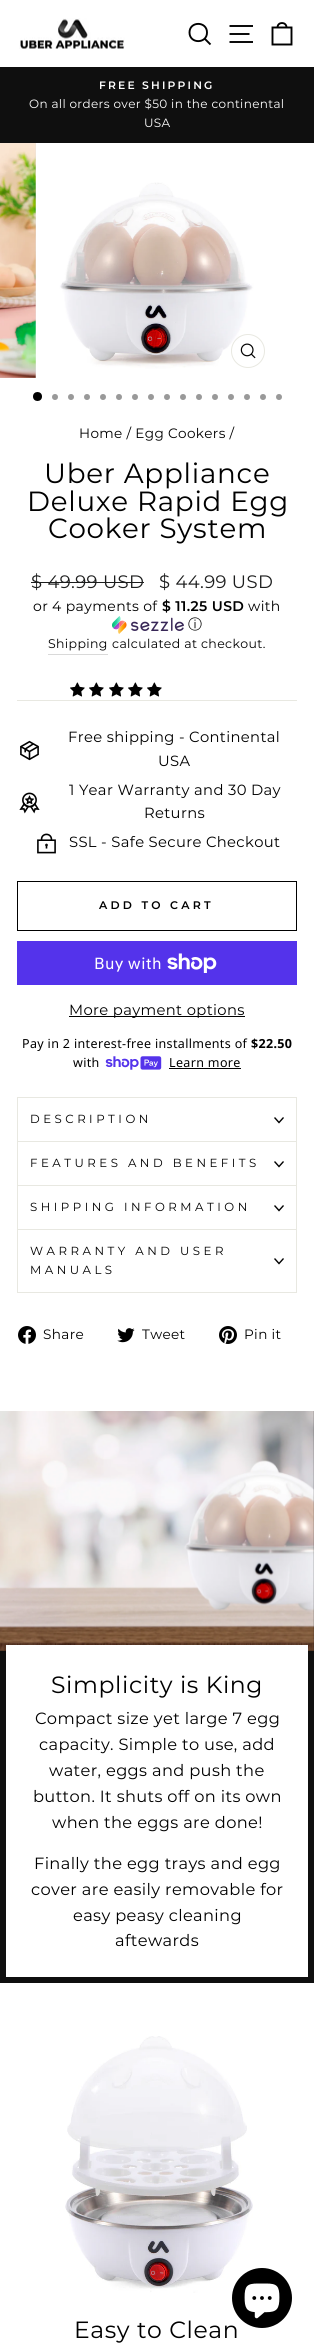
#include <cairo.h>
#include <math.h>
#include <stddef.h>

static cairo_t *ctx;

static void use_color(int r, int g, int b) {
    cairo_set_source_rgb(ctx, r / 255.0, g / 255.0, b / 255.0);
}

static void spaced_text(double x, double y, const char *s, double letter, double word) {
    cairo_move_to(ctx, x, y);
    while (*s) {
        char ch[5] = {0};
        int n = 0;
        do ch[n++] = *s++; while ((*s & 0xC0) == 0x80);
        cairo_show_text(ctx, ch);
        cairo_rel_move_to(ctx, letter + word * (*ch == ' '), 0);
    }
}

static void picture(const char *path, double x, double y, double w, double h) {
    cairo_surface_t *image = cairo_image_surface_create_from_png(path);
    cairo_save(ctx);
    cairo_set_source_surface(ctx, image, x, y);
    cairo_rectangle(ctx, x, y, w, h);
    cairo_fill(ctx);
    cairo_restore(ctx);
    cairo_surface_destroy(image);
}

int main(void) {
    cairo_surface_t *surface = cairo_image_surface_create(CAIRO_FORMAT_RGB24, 314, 2349);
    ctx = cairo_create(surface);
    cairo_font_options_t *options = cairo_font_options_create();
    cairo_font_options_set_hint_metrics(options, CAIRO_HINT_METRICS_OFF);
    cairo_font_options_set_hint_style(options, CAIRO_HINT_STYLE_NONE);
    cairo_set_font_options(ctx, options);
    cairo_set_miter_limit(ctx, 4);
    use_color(255, 255, 255);
    cairo_paint(ctx);
    picture("img1.png", 19, 18, 106, 31);
    cairo_new_path(ctx);
    cairo_move_to(ctx, 207, 32.5);
    cairo_curve_to(ctx, 207, 44, 189.5, 44, 189.5, 32.5);
    cairo_curve_to(ctx, 189.5, 21, 207, 21, 207, 32.5);
    cairo_close_path(ctx);
    cairo_move_to(ctx, 210.5, 44.5);
    cairo_line_to(ctx, 204.5, 38.5);
    use_color(0, 0, 0);
    cairo_set_line_width(ctx, 1.9);
    cairo_stroke(ctx);
    cairo_new_path(ctx);
    cairo_move_to(ctx, 229.5, 26);
    cairo_line_to(ctx, 253, 26);
    cairo_move_to(ctx, 229.5, 34);
    cairo_line_to(ctx, 249.5, 34);
    cairo_move_to(ctx, 229.5, 42);
    cairo_line_to(ctx, 253, 42);
    cairo_stroke(ctx);
    cairo_new_path(ctx);
    cairo_move_to(ctx, 272.5, 27.5);
    cairo_line_to(ctx, 291.5, 27.5);
    cairo_line_to(ctx, 291.5, 44.5);
    cairo_line_to(ctx, 272.5, 44.5);
    cairo_close_path(ctx);
    cairo_move_to(ctx, 277.5, 27.5);
    cairo_curve_to(ctx, 277.5, 21.5, 286.5, 21.5, 286.5, 27.5);
    cairo_stroke(ctx);
    use_color(15, 15, 15);
    cairo_rectangle(ctx, 0, 67, 314, 76);
    cairo_fill(ctx);
    cairo_select_font_face(ctx, "Montserrat SemiBold", CAIRO_FONT_SLANT_NORMAL, CAIRO_FONT_WEIGHT_NORMAL);
    cairo_set_font_size(ctx, 10.75);
    use_color(255, 255, 255);
    spaced_text(99, 89, "FREE SHIPPING", 2.2, 0);
    cairo_select_font_face(ctx, "Montserrat Thin", CAIRO_FONT_SLANT_NORMAL, CAIRO_FONT_WEIGHT_NORMAL);
    cairo_set_font_size(ctx, 12);
    spaced_text(29, 108, "On all orders over $50 in the continental", 0.35, 0);
    spaced_text(144, 127, "USA", 0.35, 0);
    use_color(229, 229, 229);
    cairo_rectangle(ctx, 0, 143, 36, 235);
    cairo_fill(ctx);
    picture("img2.png", 0, 143, 36, 235);
    picture("img3.png", 39, 143, 236, 235);
    cairo_arc(ctx, 248, 351, 16.5, 0, 2 * M_PI);
    use_color(232, 232, 225);
    cairo_set_line_width(ctx, 1);
    cairo_stroke(ctx);
    picture("img4.png", 240, 343, 16, 16);
    use_color(0, 0, 0);
    cairo_arc(ctx, 37.5, 396.5, 4.5, 0, 2 * M_PI);
    cairo_fill(ctx);
    use_color(153, 153, 153);
    cairo_arc(ctx, 55, 397, 3, 0, 2 * M_PI);
    cairo_fill(ctx);
    cairo_arc(ctx, 71, 397, 3, 0, 2 * M_PI);
    cairo_fill(ctx);
    cairo_arc(ctx, 87, 397, 3, 0, 2 * M_PI);
    cairo_fill(ctx);
    cairo_arc(ctx, 103, 397, 3, 0, 2 * M_PI);
    cairo_fill(ctx);
    cairo_arc(ctx, 119, 397, 3, 0, 2 * M_PI);
    cairo_fill(ctx);
    cairo_arc(ctx, 135, 397, 3, 0, 2 * M_PI);
    cairo_fill(ctx);
    cairo_arc(ctx, 151, 397, 3, 0, 2 * M_PI);
    cairo_fill(ctx);
    cairo_arc(ctx, 167, 397, 3, 0, 2 * M_PI);
    cairo_fill(ctx);
    cairo_arc(ctx, 183, 397, 3, 0, 2 * M_PI);
    cairo_fill(ctx);
    cairo_arc(ctx, 199, 397, 3, 0, 2 * M_PI);
    cairo_fill(ctx);
    cairo_arc(ctx, 215, 397, 3, 0, 2 * M_PI);
    cairo_fill(ctx);
    cairo_arc(ctx, 231, 397, 3, 0, 2 * M_PI);
    cairo_fill(ctx);
    cairo_arc(ctx, 247, 397, 3, 0, 2 * M_PI);
    cairo_fill(ctx);
    cairo_arc(ctx, 263, 397, 3, 0, 2 * M_PI);
    cairo_fill(ctx);
    cairo_arc(ctx, 279, 397, 3, 0, 2 * M_PI);
    cairo_fill(ctx);
    cairo_set_font_size(ctx, 13.6);
    use_color(0, 0, 0);
    spaced_text(79, 438, "Home / Egg Cookers /", 0.35, 0);
    cairo_set_font_size(ctx, 27.75);
    spaced_text(44, 483, "Uber Appliance", 0.75, 0);
    spaced_text(27, 511, "Deluxe Rapid Egg", 0.75, 0);
    spaced_text(48, 538, "Cooker System", 0.75, 0);
    cairo_set_font_size(ctx, 18);
    use_color(28, 29, 29);
    spaced_text(31, 588, "$ 49.99 USD", 0.35, 0);
    cairo_rectangle(ctx, 31, 582, 113, 1);
    cairo_fill(ctx);
    spaced_text(159, 588, "$ 44.99 USD", 0.35, 0);
    cairo_set_font_size(ctx, 14);
    use_color(0, 0, 0);
    spaced_text(33, 611, "or 4 payments of", 0.35, 0);
    cairo_select_font_face(ctx, "Montserrat SemiBold", CAIRO_FONT_SLANT_NORMAL, CAIRO_FONT_WEIGHT_NORMAL);
    spaced_text(162, 611, "$ 11.25 USD", 0.35, 0);
    cairo_select_font_face(ctx, "Montserrat Thin", CAIRO_FONT_SLANT_NORMAL, CAIRO_FONT_WEIGHT_NORMAL);
    spaced_text(248, 611, "with", 0.35, 0);
    picture("img5.png", 112, 616, 72, 18);
    cairo_select_font_face(ctx, "WenQuanYi Zen Hei Medium", CAIRO_FONT_SLANT_NORMAL, CAIRO_FONT_WEIGHT_NORMAL);
    spaced_text(188, 629, "ⓘ", 0.35, 0);
    use_color(217, 217, 217);
    cairo_rectangle(ctx, 48, 654, 60, 1);
    cairo_fill(ctx);
    cairo_select_font_face(ctx, "Montserrat Thin", CAIRO_FONT_SLANT_NORMAL, CAIRO_FONT_WEIGHT_NORMAL);
    cairo_set_font_size(ctx, 12.5);
    use_color(0, 0, 0);
    spaced_text(48, 648, "Shipping", 0.35, 0);
    spaced_text(112, 648, "calculated at checkout.", 0.35, 0);
    picture("img6.png", 70, 682, 15, 15);
    picture("img6.png", 89, 682, 15, 15);
    picture("img6.png", 109, 682, 15, 15);
    picture("img6.png", 128, 682, 15, 15);
    picture("img6.png", 147, 682, 15, 15);
    use_color(232, 232, 225);
    cairo_rectangle(ctx, 17, 700, 280, 1);
    cairo_fill(ctx);
    picture("img7.png", 20, 740, 19, 21);
    cairo_set_font_size(ctx, 14.75);
    use_color(0, 0, 0);
    spaced_text(68, 742, "Free shipping - Continental", 0.35, 0);
    spaced_text(158, 766, "USA", 0.35, 0);
    picture("img8.png", 19, 792, 21, 22);
    spaced_text(69, 795, "1 Year Warranty and 30 Day", 0.35, 0);
    spaced_text(144, 818, "Returns", 0.35, 0);
    picture("img9.png", 37, 833, 19, 21);
    spaced_text(69, 847, "SSL - Safe Secure Checkout", 0.35, 0);
    cairo_rectangle(ctx, 17.5, 881.5, 279, 49);
    cairo_stroke(ctx);
    cairo_select_font_face(ctx, "Montserrat SemiBold", CAIRO_FONT_SLANT_NORMAL, CAIRO_FONT_WEIGHT_NORMAL);
    cairo_set_font_size(ctx, 11);
    spaced_text(99, 909, "ADD TO CART", 3.25, 0);
    use_color(84, 51, 235);
    cairo_rectangle(ctx, 17, 941, 280, 44);
    cairo_fill(ctx);
    cairo_select_font_face(ctx, "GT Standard", CAIRO_FONT_SLANT_NORMAL, CAIRO_FONT_WEIGHT_NORMAL);
    cairo_set_font_size(ctx, 16);
    use_color(255, 255, 255);
    spaced_text(94, 969, "Buy with", 0.35, 0);
    picture("img10.png", 167, 953, 50, 20);
    use_color(0, 0, 0);
    cairo_rectangle(ctx, 69, 1016, 176, 1);
    cairo_fill(ctx);
    cairo_select_font_face(ctx, "Montserrat Thin", CAIRO_FONT_SLANT_NORMAL, CAIRO_FONT_WEIGHT_NORMAL);
    cairo_set_font_size(ctx, 14.75);
    spaced_text(69, 1015, "More payment options", 0.35, 0);
    cairo_select_font_face(ctx, "Noto Sans", CAIRO_FONT_SLANT_NORMAL, CAIRO_FONT_WEIGHT_NORMAL);
    cairo_set_font_size(ctx, 12.5);
    spaced_text(22, 1048, "Pay in 2 interest-free installments of", 0.35, 0);
    cairo_select_font_face(ctx, "Noto Sans", CAIRO_FONT_SLANT_NORMAL, CAIRO_FONT_WEIGHT_BOLD);
    spaced_text(251, 1048, "$22.50", 0.35, 0);
    cairo_select_font_face(ctx, "Noto Sans", CAIRO_FONT_SLANT_NORMAL, CAIRO_FONT_WEIGHT_NORMAL);
    spaced_text(73, 1067, "with", 0.35, 0);
    picture("img11.png", 105, 1056, 57, 14);
    spaced_text(169, 1067, "Learn more", 0.35, 0);
    cairo_rectangle(ctx, 169, 1068, 72, 1);
    cairo_fill(ctx);
    use_color(232, 232, 225);
    cairo_rectangle(ctx, 17, 1141, 280, 1);
    cairo_fill(ctx);
    cairo_rectangle(ctx, 17, 1097, 280, 1);
    cairo_fill(ctx);
    cairo_rectangle(ctx, 296, 1097, 1, 44);
    cairo_fill(ctx);
    cairo_rectangle(ctx, 17, 1097, 1, 44);
    cairo_fill(ctx);
    cairo_select_font_face(ctx, "Montserrat Thin", CAIRO_FONT_SLANT_NORMAL, CAIRO_FONT_WEIGHT_NORMAL);
    cairo_set_font_size(ctx, 11.75);
    use_color(0, 0, 0);
    spaced_text(30, 1123, "DESCRIPTION", 3.5, 0);
    cairo_new_path(ctx);
    cairo_move_to(ctx, 274.5, 1117.5);
    cairo_line_to(ctx, 279, 1122.5);
    cairo_line_to(ctx, 283.5, 1117.5);
    cairo_set_line_width(ctx, 1.4);
    cairo_stroke(ctx);
    use_color(232, 232, 225);
    cairo_rectangle(ctx, 17, 1185, 280, 1);
    cairo_fill(ctx);
    cairo_rectangle(ctx, 296, 1142, 1, 43);
    cairo_fill(ctx);
    cairo_rectangle(ctx, 17, 1142, 1, 43);
    cairo_fill(ctx);
    use_color(0, 0, 0);
    spaced_text(30, 1167, "FEATURES AND BENEFITS", 3.5, 0);
    cairo_new_path(ctx);
    cairo_move_to(ctx, 274.5, 1161.5);
    cairo_line_to(ctx, 279, 1166.5);
    cairo_line_to(ctx, 283.5, 1161.5);
    cairo_stroke(ctx);
    use_color(232, 232, 225);
    cairo_rectangle(ctx, 17, 1229, 280, 1);
    cairo_fill(ctx);
    cairo_rectangle(ctx, 296, 1186, 1, 43);
    cairo_fill(ctx);
    cairo_rectangle(ctx, 17, 1186, 1, 43);
    cairo_fill(ctx);
    use_color(0, 0, 0);
    spaced_text(30, 1211, "SHIPPING INFORMATION", 3.5, 0);
    cairo_new_path(ctx);
    cairo_move_to(ctx, 274.5, 1205.5);
    cairo_line_to(ctx, 279, 1210.5);
    cairo_line_to(ctx, 283.5, 1205.5);
    cairo_stroke(ctx);
    use_color(232, 232, 225);
    cairo_rectangle(ctx, 17, 1292, 280, 1);
    cairo_fill(ctx);
    cairo_rectangle(ctx, 296, 1230, 1, 62);
    cairo_fill(ctx);
    cairo_rectangle(ctx, 17, 1230, 1, 62);
    cairo_fill(ctx);
    use_color(0, 0, 0);
    spaced_text(30, 1255, "WARRANTY AND USER", 3.5, 0);
    cairo_new_path(ctx);
    cairo_move_to(ctx, 274.5, 1258.5);
    cairo_line_to(ctx, 279, 1263.5);
    cairo_line_to(ctx, 283.5, 1258.5);
    cairo_stroke(ctx);
    spaced_text(30, 1274, "MANUALS", 3.5, 0);
    picture("img12.png", 18, 1326, 18, 18);
    cairo_set_font_size(ctx, 13.6);
    spaced_text(43, 1339, "Share", 0.35, 0);
    picture("img13.png", 117, 1328, 18, 15);
    spaced_text(142, 1339, "Tweet", 0.35, 0);
    picture("img14.png", 219, 1326, 18, 18);
    spaced_text(244, 1339, "Pin it", 0.35, 0);
    use_color(15, 15, 15);
    cairo_rectangle(ctx, 0, 1411, 314, 572);
    cairo_fill(ctx);
    picture("img15.png", 0, 1411, 314, 240);
    use_color(255, 255, 255);
    cairo_rectangle(ctx, 6, 1645, 302, 332);
    cairo_fill(ctx);
    cairo_set_font_size(ctx, 23.5);
    use_color(0, 0, 0);
    spaced_text(51, 1693, "Simplicity is King", 0.6, 0);
    cairo_set_font_size(ctx, 16.25);
    spaced_text(35, 1724, "Compact size yet large 7 egg", 0.35, 0);
    spaced_text(39, 1750, "capacity. Simple to use, add", 0.35, 0);
    spaced_text(49, 1776, "water, eggs and push the", 0.35, 0);
    spaced_text(33, 1802, "button. It shuts off on its own", 0.35, 0);
    spaced_text(52, 1828, "when the eggs are done!", 0.35, 0);
    spaced_text(34, 1869, "Finally the egg trays and egg", 0.35, 0);
    spaced_text(31, 1895, "cover are easily removable for", 0.35, 0);
    spaced_text(73, 1921, "easy peasy cleaning", 0.35, 0);
    spaced_text(115, 1946, "aftewards", 0.35, 0);
    picture("img16.png", 65, 2036, 188, 257);
    cairo_set_font_size(ctx, 23.5);
    spaced_text(74, 2338, "Easy to Clean", 0.6, 0);
    cairo_new_path(ctx);
    cairo_arc(ctx, 262, 2298, 30, 0, 2 * M_PI);
    cairo_fill(ctx);
    picture("img17.png", 244, 2283, 36, 36);
    cairo_surface_write_to_png(surface, "result.png");
    cairo_font_options_destroy(options);
    cairo_destroy(ctx);
    cairo_surface_destroy(surface);
    return 0;
}
